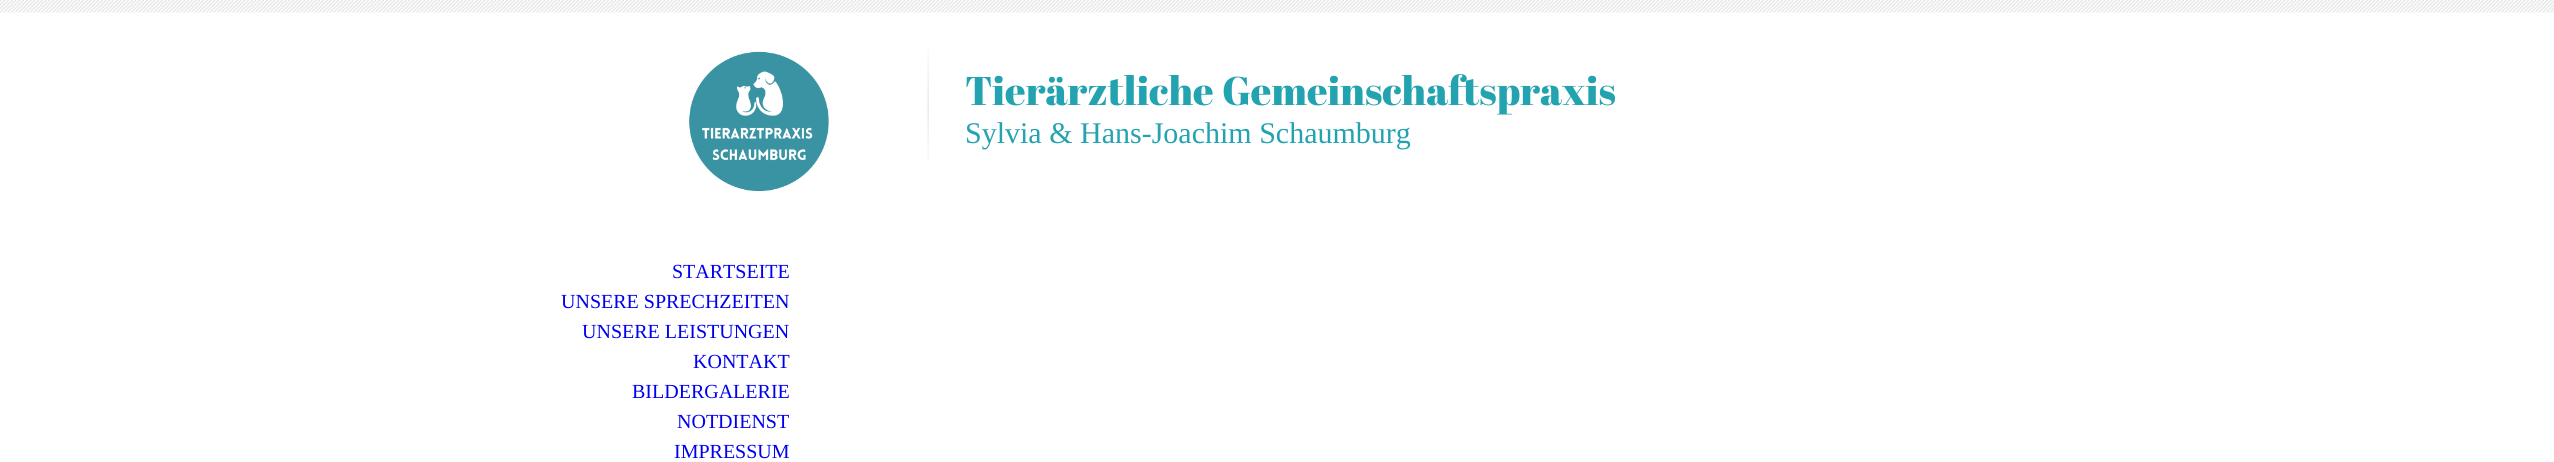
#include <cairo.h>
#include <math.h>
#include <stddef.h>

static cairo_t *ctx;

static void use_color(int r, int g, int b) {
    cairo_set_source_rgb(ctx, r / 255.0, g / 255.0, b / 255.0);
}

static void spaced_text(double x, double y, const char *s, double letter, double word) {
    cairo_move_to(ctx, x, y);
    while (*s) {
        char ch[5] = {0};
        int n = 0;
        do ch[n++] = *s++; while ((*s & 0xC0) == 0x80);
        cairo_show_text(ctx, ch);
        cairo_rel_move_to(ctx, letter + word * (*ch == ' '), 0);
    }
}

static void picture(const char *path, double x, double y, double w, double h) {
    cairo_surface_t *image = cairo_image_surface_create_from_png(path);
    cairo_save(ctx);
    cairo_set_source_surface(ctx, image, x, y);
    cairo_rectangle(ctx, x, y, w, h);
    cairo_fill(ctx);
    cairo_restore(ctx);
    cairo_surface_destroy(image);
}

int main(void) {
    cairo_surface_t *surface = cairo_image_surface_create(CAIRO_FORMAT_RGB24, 2554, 462);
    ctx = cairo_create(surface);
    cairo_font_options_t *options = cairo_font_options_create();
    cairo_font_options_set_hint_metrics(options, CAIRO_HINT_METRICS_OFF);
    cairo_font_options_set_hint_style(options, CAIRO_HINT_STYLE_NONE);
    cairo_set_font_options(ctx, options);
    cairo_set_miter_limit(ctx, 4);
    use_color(255, 255, 255);
    cairo_paint(ctx);
    picture("img1.png", 0, 0, 2554, 13);
    picture("img2.png", 689, 51, 140, 141);
    picture("img3.png", 927, 50, 2, 112);
    cairo_select_font_face(ctx, "Abril Fatface", CAIRO_FONT_SLANT_NORMAL, CAIRO_FONT_WEIGHT_NORMAL);
    cairo_set_font_size(ctx, 40);
    use_color(35, 163, 175);
    spaced_text(965, 105, "Tierärztliche Gemeinschaftspraxis", 0, 1);
    cairo_select_font_face(ctx, "Liberation Serif", CAIRO_FONT_SLANT_NORMAL, CAIRO_FONT_WEIGHT_NORMAL);
    cairo_set_font_size(ctx, 30);
    cairo_move_to(ctx, 965, 143);
    cairo_show_text(ctx, "Sylvia & Hans-Joachim Schaumburg");
    cairo_set_font_size(ctx, 20);
    use_color(0, 0, 238);
    cairo_move_to(ctx, 672, 278);
    cairo_show_text(ctx, "STARTSEITE");
    cairo_move_to(ctx, 561, 308);
    cairo_show_text(ctx, "UNSERE SPRECHZEITEN");
    cairo_move_to(ctx, 582, 338);
    cairo_show_text(ctx, "UNSERE LEISTUNGEN");
    cairo_move_to(ctx, 693, 368);
    cairo_show_text(ctx, "KONTAKT");
    cairo_move_to(ctx, 632, 398);
    cairo_show_text(ctx, "BILDERGALERIE");
    cairo_move_to(ctx, 677, 428);
    cairo_show_text(ctx, "NOTDIENST");
    cairo_move_to(ctx, 674, 458);
    cairo_show_text(ctx, "IMPRESSUM");
    cairo_surface_write_to_png(surface, "result.png");
    cairo_font_options_destroy(options);
    cairo_destroy(ctx);
    cairo_surface_destroy(surface);
    return 0;
}
